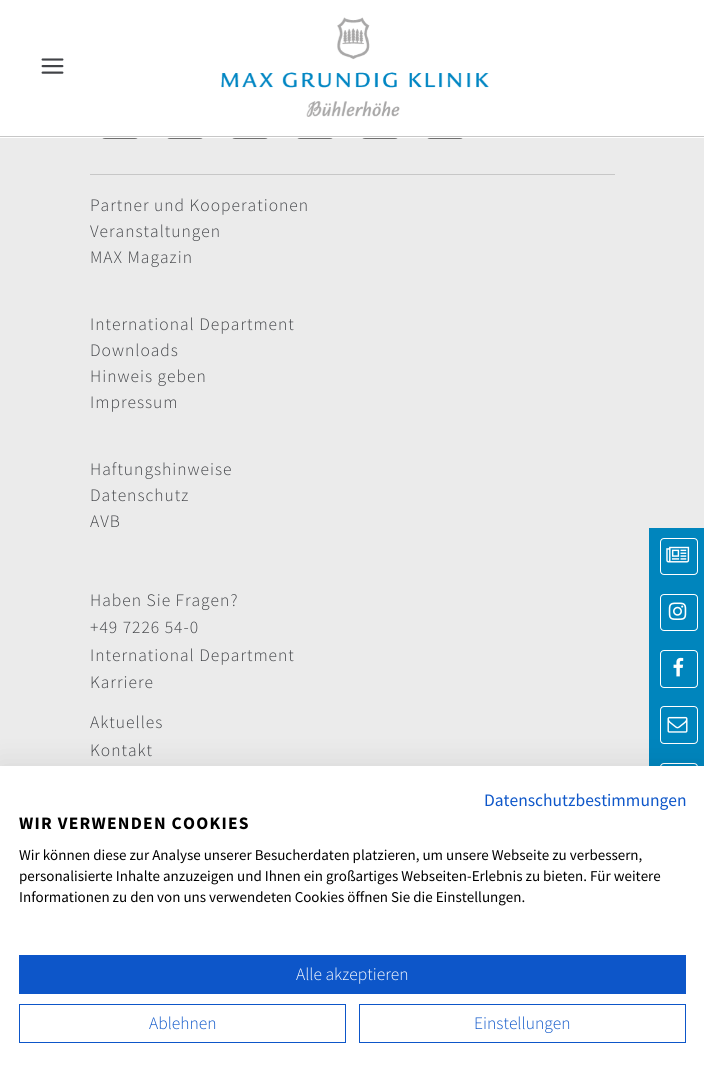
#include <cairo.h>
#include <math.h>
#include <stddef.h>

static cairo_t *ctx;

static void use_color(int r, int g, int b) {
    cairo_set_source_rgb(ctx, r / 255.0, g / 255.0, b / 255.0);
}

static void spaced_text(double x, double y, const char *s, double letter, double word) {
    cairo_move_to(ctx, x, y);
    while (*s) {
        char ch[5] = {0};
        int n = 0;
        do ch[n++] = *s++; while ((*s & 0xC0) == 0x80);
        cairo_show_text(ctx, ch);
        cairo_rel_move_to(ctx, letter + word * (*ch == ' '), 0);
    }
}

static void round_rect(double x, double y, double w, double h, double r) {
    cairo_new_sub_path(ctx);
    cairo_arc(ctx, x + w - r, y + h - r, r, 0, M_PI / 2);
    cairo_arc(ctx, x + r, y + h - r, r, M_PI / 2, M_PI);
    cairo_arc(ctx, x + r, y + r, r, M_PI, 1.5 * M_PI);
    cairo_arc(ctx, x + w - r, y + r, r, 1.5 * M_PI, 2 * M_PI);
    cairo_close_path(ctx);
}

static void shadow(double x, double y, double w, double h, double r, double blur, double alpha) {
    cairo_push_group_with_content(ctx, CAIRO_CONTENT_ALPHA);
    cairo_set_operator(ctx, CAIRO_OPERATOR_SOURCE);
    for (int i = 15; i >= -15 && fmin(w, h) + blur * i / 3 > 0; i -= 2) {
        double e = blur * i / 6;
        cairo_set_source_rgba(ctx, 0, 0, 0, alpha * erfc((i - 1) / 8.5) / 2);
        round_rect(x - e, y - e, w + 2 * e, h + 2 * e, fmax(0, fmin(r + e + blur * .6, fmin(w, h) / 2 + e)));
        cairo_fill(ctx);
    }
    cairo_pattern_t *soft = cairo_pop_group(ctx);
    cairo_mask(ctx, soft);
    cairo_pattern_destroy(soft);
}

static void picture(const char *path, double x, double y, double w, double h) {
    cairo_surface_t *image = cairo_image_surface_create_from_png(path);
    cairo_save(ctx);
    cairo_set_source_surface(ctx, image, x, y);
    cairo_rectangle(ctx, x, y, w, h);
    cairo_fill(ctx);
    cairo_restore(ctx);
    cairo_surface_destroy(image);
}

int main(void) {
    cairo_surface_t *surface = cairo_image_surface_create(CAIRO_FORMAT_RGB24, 704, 1076);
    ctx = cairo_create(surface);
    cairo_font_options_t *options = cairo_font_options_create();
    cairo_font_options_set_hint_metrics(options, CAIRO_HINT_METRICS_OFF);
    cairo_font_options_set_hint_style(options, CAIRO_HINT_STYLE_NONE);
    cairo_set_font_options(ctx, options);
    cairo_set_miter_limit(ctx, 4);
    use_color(235, 235, 235);
    cairo_paint(ctx);
    round_rect(101.5, 101.5, 37, 37, 3.5);
    use_color(112, 112, 112);
    cairo_set_line_width(ctx, 1);
    cairo_stroke(ctx);
    round_rect(166.5, 101.5, 37, 37, 3.5);
    cairo_stroke(ctx);
    round_rect(231.5, 101.5, 37, 37, 3.5);
    cairo_stroke(ctx);
    round_rect(296.5, 101.5, 37, 37, 3.5);
    cairo_stroke(ctx);
    round_rect(361.5, 101.5, 37, 37, 3.5);
    cairo_stroke(ctx);
    round_rect(426.5, 101.5, 37, 37, 3.5);
    cairo_stroke(ctx);
    use_color(255, 255, 255);
    cairo_rectangle(ctx, 0, 0, 704, 138);
    cairo_fill(ctx);
    use_color(199, 199, 199);
    cairo_rectangle(ctx, 0, 136, 704, 1);
    cairo_fill(ctx);
    picture("img1.png", 41, 58, 23, 16);
    picture("img2.png", 221, 17, 268, 100);
    cairo_rectangle(ctx, 90, 174, 525, 1);
    cairo_fill(ctx);
    cairo_select_font_face(ctx, "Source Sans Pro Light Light", CAIRO_FONT_SLANT_NORMAL, CAIRO_FONT_WEIGHT_NORMAL);
    cairo_set_font_size(ctx, 17.5);
    use_color(65, 67, 71);
    spaced_text(90, 211, "Partner und Kooperationen", 1, 0);
    spaced_text(90, 237, "Veranstaltungen", 1, 0);
    spaced_text(90, 263, "MAX Magazin", 1, 0);
    spaced_text(90, 330, "International Department", 1, 0);
    spaced_text(90, 356, "Downloads", 1, 0);
    spaced_text(90, 382, "Hinweis geben", 1, 0);
    spaced_text(90, 408, "Impressum", 1, 0);
    spaced_text(90, 475, "Haftungshinweise", 1, 0);
    spaced_text(90, 501, "Datenschutz", 1, 0);
    spaced_text(90, 527, "AVB", 1, 0);
    spaced_text(90, 606, "Haben Sie Fragen?", 1, 0);
    spaced_text(90, 633, "+49 7226 54-0", 1, 0);
    spaced_text(90, 661, "International Department", 1, 0);
    spaced_text(90, 688, "Karriere", 1, 0);
    spaced_text(90, 728, "Aktuelles", 1, 0);
    spaced_text(90, 756, "Kontakt", 1, 0);
    use_color(0, 133, 189);
    cairo_rectangle(ctx, 649, 528, 55, 238);
    cairo_fill(ctx);
    round_rect(660.5, 538.5, 37, 36, 3.5);
    use_color(255, 255, 255);
    cairo_stroke(ctx);
    picture("img3.png", 666, 546, 24, 17);
    round_rect(660.5, 594.5, 37, 36, 3.5);
    cairo_stroke(ctx);
    picture("img4.png", 668, 602, 19, 18);
    round_rect(660.5, 650.5, 37, 37, 3.5);
    cairo_stroke(ctx);
    picture("img5.png", 673, 657, 11, 20);
    round_rect(660.5, 706.5, 37, 37, 3.5);
    cairo_stroke(ctx);
    picture("img6.png", 667, 716, 21, 17);
    round_rect(660.5, 763.5, 37, 36, 3.5);
    cairo_stroke(ctx);
    use_color(0, 0, 0);
    shadow(0, 766, 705, 310, 0, 15, 0.1);
    use_color(255, 255, 255);
    cairo_rectangle(ctx, 0, 766, 704, 310);
    cairo_fill(ctx);
    cairo_select_font_face(ctx, "Source Sans Pro", CAIRO_FONT_SLANT_NORMAL, CAIRO_FONT_WEIGHT_NORMAL);
    use_color(13, 86, 201);
    cairo_move_to(ctx, 484, 806);
    cairo_show_text(ctx, "Datenschutzbestimmungen");
    cairo_select_font_face(ctx, "Source Sans Pro", CAIRO_FONT_SLANT_NORMAL, CAIRO_FONT_WEIGHT_BOLD);
    use_color(0, 0, 0);
    spaced_text(19, 829, "WIR VERWENDEN COOKIES", 1.25, 0);
    cairo_select_font_face(ctx, "Source Sans Pro", CAIRO_FONT_SLANT_NORMAL, CAIRO_FONT_WEIGHT_NORMAL);
    cairo_set_font_size(ctx, 15);
    cairo_move_to(ctx, 19, 860);
    cairo_show_text(ctx, "Wir können diese zur Analyse unserer Besucherdaten platzieren, um unsere Webseite zu verbessern,");
    cairo_move_to(ctx, 19, 881);
    cairo_show_text(ctx, "personalisierte Inhalte anzuzeigen und Ihnen ein großartiges Webseiten-Erlebnis zu bieten. Für weitere");
    cairo_move_to(ctx, 19, 902);
    cairo_show_text(ctx, "Informationen zu den von uns verwendeten Cookies öffnen Sie die Einstellungen.");
    use_color(13, 86, 201);
    cairo_rectangle(ctx, 19, 955, 667, 39);
    cairo_fill(ctx);
    cairo_select_font_face(ctx, "Source Sans Pro Light Light", CAIRO_FONT_SLANT_NORMAL, CAIRO_FONT_WEIGHT_NORMAL);
    cairo_set_font_size(ctx, 17.5);
    use_color(255, 255, 255);
    cairo_move_to(ctx, 296, 980);
    cairo_show_text(ctx, "Alle akzeptieren");
    cairo_rectangle(ctx, 19.5, 1004.5, 326, 38);
    use_color(13, 86, 201);
    cairo_stroke(ctx);
    cairo_move_to(ctx, 149, 1029);
    cairo_show_text(ctx, "Ablehnen");
    cairo_rectangle(ctx, 359.5, 1004.5, 326, 38);
    cairo_stroke(ctx);
    cairo_move_to(ctx, 474, 1029);
    cairo_show_text(ctx, "Einstellungen");
    cairo_surface_write_to_png(surface, "result.png");
    cairo_font_options_destroy(options);
    cairo_destroy(ctx);
    cairo_surface_destroy(surface);
    return 0;
}
